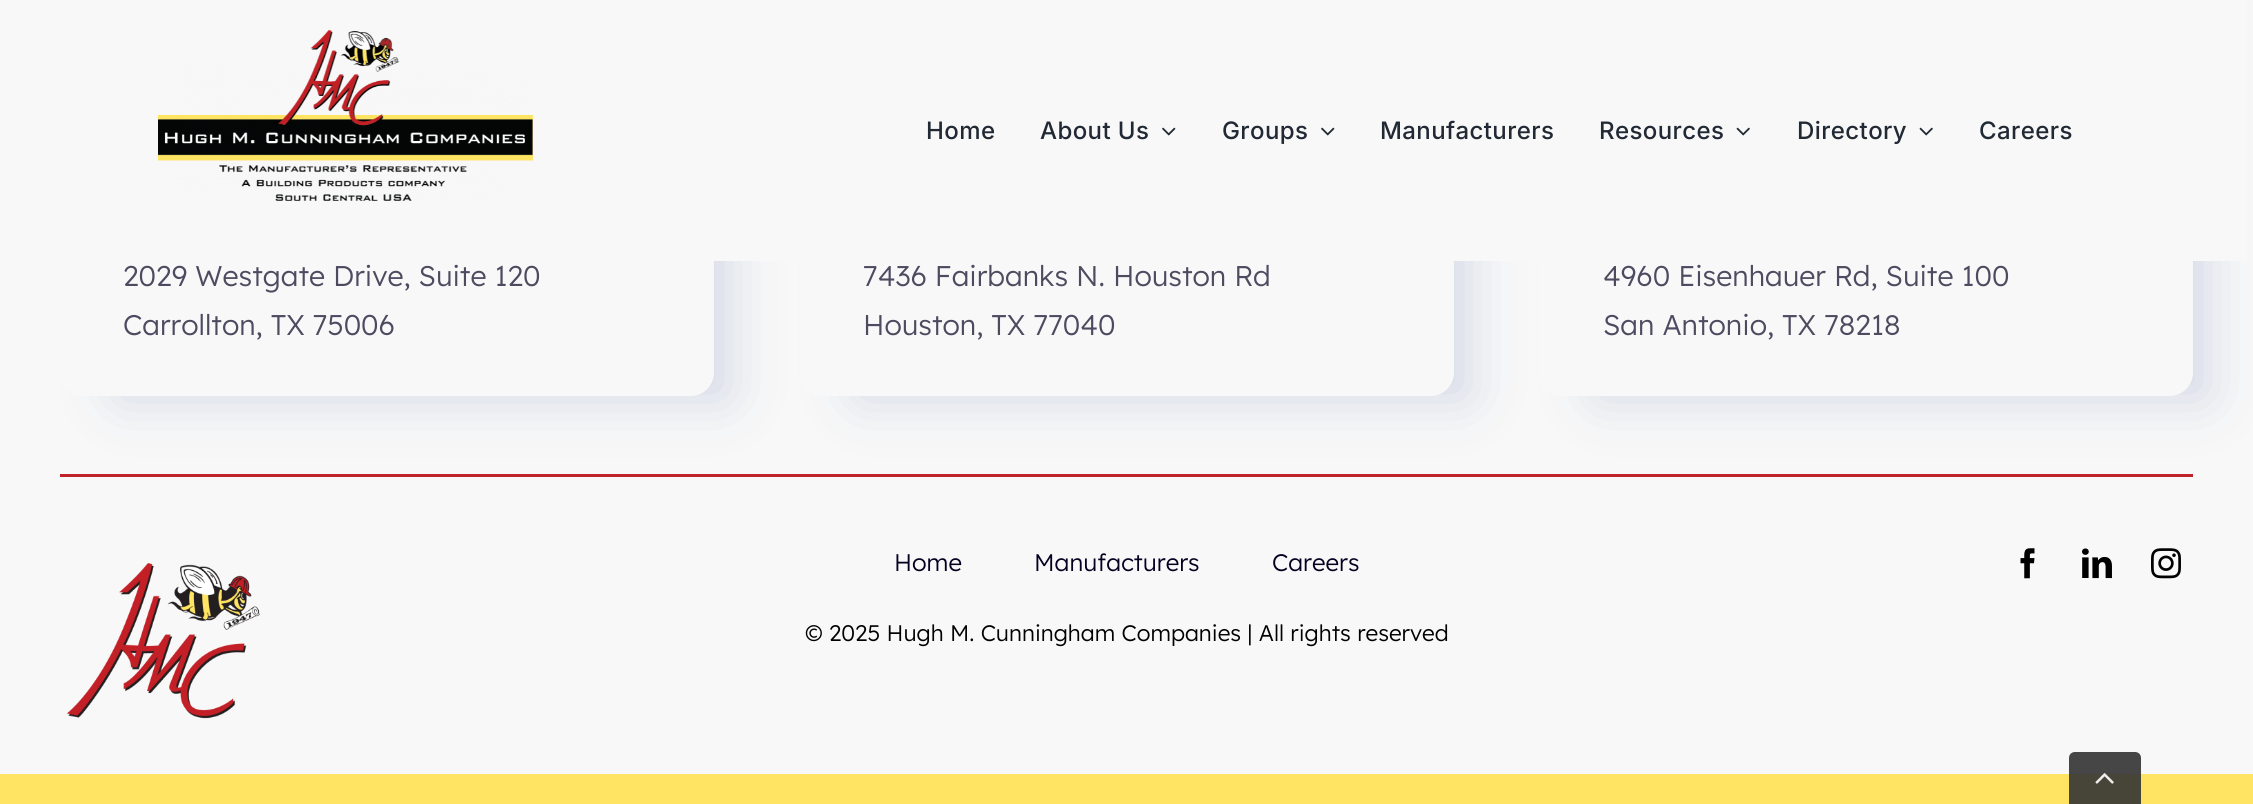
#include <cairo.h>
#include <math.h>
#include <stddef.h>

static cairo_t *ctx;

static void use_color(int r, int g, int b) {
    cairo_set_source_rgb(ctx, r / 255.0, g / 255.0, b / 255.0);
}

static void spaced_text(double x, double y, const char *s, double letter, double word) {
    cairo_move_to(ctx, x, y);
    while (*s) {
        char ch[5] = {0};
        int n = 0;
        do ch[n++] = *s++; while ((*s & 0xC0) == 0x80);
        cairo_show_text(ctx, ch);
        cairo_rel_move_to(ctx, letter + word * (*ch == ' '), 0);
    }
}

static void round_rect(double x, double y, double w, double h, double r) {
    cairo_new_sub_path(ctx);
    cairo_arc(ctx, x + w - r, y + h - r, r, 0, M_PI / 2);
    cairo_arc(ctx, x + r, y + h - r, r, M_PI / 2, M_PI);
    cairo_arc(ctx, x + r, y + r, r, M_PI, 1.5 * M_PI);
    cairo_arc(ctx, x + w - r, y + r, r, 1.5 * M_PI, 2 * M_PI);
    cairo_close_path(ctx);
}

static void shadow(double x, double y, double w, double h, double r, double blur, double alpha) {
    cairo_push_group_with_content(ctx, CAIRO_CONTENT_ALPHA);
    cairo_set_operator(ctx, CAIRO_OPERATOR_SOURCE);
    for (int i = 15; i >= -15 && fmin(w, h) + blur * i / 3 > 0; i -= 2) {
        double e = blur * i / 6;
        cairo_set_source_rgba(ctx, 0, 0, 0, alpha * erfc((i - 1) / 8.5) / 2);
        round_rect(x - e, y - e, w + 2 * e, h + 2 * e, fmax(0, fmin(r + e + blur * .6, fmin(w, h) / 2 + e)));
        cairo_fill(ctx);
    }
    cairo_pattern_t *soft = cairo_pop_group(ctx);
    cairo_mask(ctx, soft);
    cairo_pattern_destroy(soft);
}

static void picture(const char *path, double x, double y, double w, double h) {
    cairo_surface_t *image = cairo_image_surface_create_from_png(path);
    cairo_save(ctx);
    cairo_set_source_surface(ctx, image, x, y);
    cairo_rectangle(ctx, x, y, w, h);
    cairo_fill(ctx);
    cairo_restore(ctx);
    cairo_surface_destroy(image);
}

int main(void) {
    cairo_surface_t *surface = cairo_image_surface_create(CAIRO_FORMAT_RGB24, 2253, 804);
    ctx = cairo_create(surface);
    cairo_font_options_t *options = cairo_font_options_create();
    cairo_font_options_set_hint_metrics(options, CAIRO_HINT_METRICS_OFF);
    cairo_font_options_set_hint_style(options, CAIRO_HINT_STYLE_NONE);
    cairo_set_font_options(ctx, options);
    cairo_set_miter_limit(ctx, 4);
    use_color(248, 248, 248);
    cairo_paint(ctx);
    cairo_save(ctx);
    cairo_set_fill_rule(ctx, CAIRO_FILL_RULE_EVEN_ODD);
    cairo_new_path(ctx);
    cairo_move_to(ctx, 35, 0);
    cairo_line_to(ctx, 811, 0);
    cairo_line_to(ctx, 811, 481);
    cairo_line_to(ctx, 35, 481);
    cairo_close_path(ctx);
    cairo_move_to(ctx, 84, -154);
    cairo_line_to(ctx, 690, -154);
    cairo_curve_to(ctx, 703.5, -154, 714, -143.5, 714, -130);
    cairo_line_to(ctx, 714, 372);
    cairo_curve_to(ctx, 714, 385.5, 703.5, 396, 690, 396);
    cairo_line_to(ctx, 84, 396);
    cairo_curve_to(ctx, 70.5, 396, 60, 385.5, 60, 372);
    cairo_line_to(ctx, 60, -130);
    cairo_curve_to(ctx, 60, -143.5, 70.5, -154, 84, -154);
    cairo_close_path(ctx);
    cairo_clip(ctx);
    use_color(212, 217, 229);
    shadow(117, -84, 612, 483, 3, 27, 1);
    cairo_restore(ctx);
    cairo_save(ctx);
    cairo_set_fill_rule(ctx, CAIRO_FILL_RULE_EVEN_ODD);
    cairo_new_path(ctx);
    cairo_move_to(ctx, 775, 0);
    cairo_line_to(ctx, 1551, 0);
    cairo_line_to(ctx, 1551, 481);
    cairo_line_to(ctx, 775, 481);
    cairo_close_path(ctx);
    cairo_move_to(ctx, 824, -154);
    cairo_line_to(ctx, 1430, -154);
    cairo_curve_to(ctx, 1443.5, -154, 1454, -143.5, 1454, -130);
    cairo_line_to(ctx, 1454, 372);
    cairo_curve_to(ctx, 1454, 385.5, 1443.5, 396, 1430, 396);
    cairo_line_to(ctx, 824, 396);
    cairo_curve_to(ctx, 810.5, 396, 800, 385.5, 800, 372);
    cairo_line_to(ctx, 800, -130);
    cairo_curve_to(ctx, 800, -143.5, 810.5, -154, 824, -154);
    cairo_close_path(ctx);
    cairo_clip(ctx);
    use_color(212, 217, 229);
    shadow(857, -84, 612, 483, 3, 27, 1);
    cairo_restore(ctx);
    cairo_save(ctx);
    cairo_set_fill_rule(ctx, CAIRO_FILL_RULE_EVEN_ODD);
    cairo_new_path(ctx);
    cairo_move_to(ctx, 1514, 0);
    cairo_line_to(ctx, 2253, 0);
    cairo_line_to(ctx, 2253, 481);
    cairo_line_to(ctx, 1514, 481);
    cairo_close_path(ctx);
    cairo_move_to(ctx, 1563, -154);
    cairo_line_to(ctx, 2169, -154);
    cairo_curve_to(ctx, 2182.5, -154, 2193, -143.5, 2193, -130);
    cairo_line_to(ctx, 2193, 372);
    cairo_curve_to(ctx, 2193, 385.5, 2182.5, 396, 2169, 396);
    cairo_line_to(ctx, 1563, 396);
    cairo_curve_to(ctx, 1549.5, 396, 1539, 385.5, 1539, 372);
    cairo_line_to(ctx, 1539, -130);
    cairo_curve_to(ctx, 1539, -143.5, 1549.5, -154, 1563, -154);
    cairo_close_path(ctx);
    cairo_clip(ctx);
    use_color(212, 217, 229);
    shadow(1596, -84, 612, 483, 3, 27, 1);
    cairo_restore(ctx);
    use_color(248, 248, 248);
    cairo_rectangle(ctx, 714, 0, 1533, 261);
    cairo_fill(ctx);
    picture("img1.png", 158, 30, 375, 171);
    cairo_select_font_face(ctx, "Inter Medium", CAIRO_FONT_SLANT_NORMAL, CAIRO_FONT_WEIGHT_NORMAL);
    cairo_set_font_size(ctx, 24);
    use_color(33, 41, 52);
    spaced_text(926, 139, "Home", 0.4, 0);
    spaced_text(1040, 139, "About Us", 0.4, 0);
    picture("img2.png", 1162, 127, 14, 9);
    spaced_text(1222, 139, "Groups", 0.4, 0);
    picture("img2.png", 1321, 127, 14, 9);
    spaced_text(1380, 139, "Manufacturers", 0.4, 0);
    spaced_text(1599, 139, "Resources", 0.4, 0);
    picture("img3.png", 1736, 127, 14, 9);
    spaced_text(1797, 139, "Directory", 0.4, 0);
    picture("img3.png", 1919, 127, 14, 9);
    spaced_text(1979, 139, "Careers", 0.4, 0);
    cairo_select_font_face(ctx, "Lexend Light", CAIRO_FONT_SLANT_NORMAL, CAIRO_FONT_WEIGHT_NORMAL);
    cairo_set_font_size(ctx, 28.5);
    use_color(78, 74, 96);
    cairo_move_to(ctx, 123, 286);
    cairo_show_text(ctx, "2029 Westgate Drive, Suite 120");
    cairo_move_to(ctx, 123, 335);
    cairo_show_text(ctx, "Carrollton, TX 75006");
    cairo_move_to(ctx, 863, 286);
    cairo_show_text(ctx, "7436 Fairbanks N. Houston Rd");
    cairo_move_to(ctx, 863, 335);
    cairo_show_text(ctx, "Houston, TX 77040");
    cairo_move_to(ctx, 1603, 286);
    cairo_show_text(ctx, "4960 Eisenhauer Rd, Suite 100");
    cairo_move_to(ctx, 1603, 335);
    cairo_show_text(ctx, "San Antonio, TX 78218");
    use_color(191, 36, 41);
    cairo_rectangle(ctx, 60, 474, 2133, 3);
    cairo_fill(ctx);
    picture("img4.png", 67, 563, 193, 156);
    cairo_set_font_size(ctx, 24);
    use_color(5, 0, 33);
    cairo_move_to(ctx, 894, 571);
    cairo_show_text(ctx, "Home");
    cairo_move_to(ctx, 1034, 571);
    cairo_show_text(ctx, "Manufacturers");
    cairo_move_to(ctx, 1272, 571);
    cairo_show_text(ctx, "Careers");
    cairo_set_font_size(ctx, 22.5);
    use_color(0, 0, 0);
    cairo_move_to(ctx, 805, 641);
    cairo_show_text(ctx, "© 2025 Hugh M. Cunningham Companies | All rights reserved");
    picture("img5.png", 2020, 548, 15, 31);
    picture("img6.png", 2082, 548, 30, 31);
    picture("img7.png", 2151, 548, 30, 31);
    use_color(255, 227, 99);
    cairo_rectangle(ctx, 0, 774, 2253, 30);
    cairo_fill(ctx);
    cairo_set_source_rgba(ctx, 0.2, 0.2, 0.2, 0.9);
    cairo_new_path(ctx);
    cairo_move_to(ctx, 2075, 752);
    cairo_line_to(ctx, 2135, 752);
    cairo_curve_to(ctx, 2138.5, 752, 2141, 754.5, 2141, 758);
    cairo_line_to(ctx, 2141, 804);
    cairo_line_to(ctx, 2069, 804);
    cairo_line_to(ctx, 2069, 758);
    cairo_curve_to(ctx, 2069, 754.5, 2071.5, 752, 2075, 752);
    cairo_close_path(ctx);
    cairo_fill(ctx);
    picture("img8.png", 2095, 773, 19, 11);
    cairo_surface_write_to_png(surface, "result.png");
    cairo_font_options_destroy(options);
    cairo_destroy(ctx);
    cairo_surface_destroy(surface);
    return 0;
}
